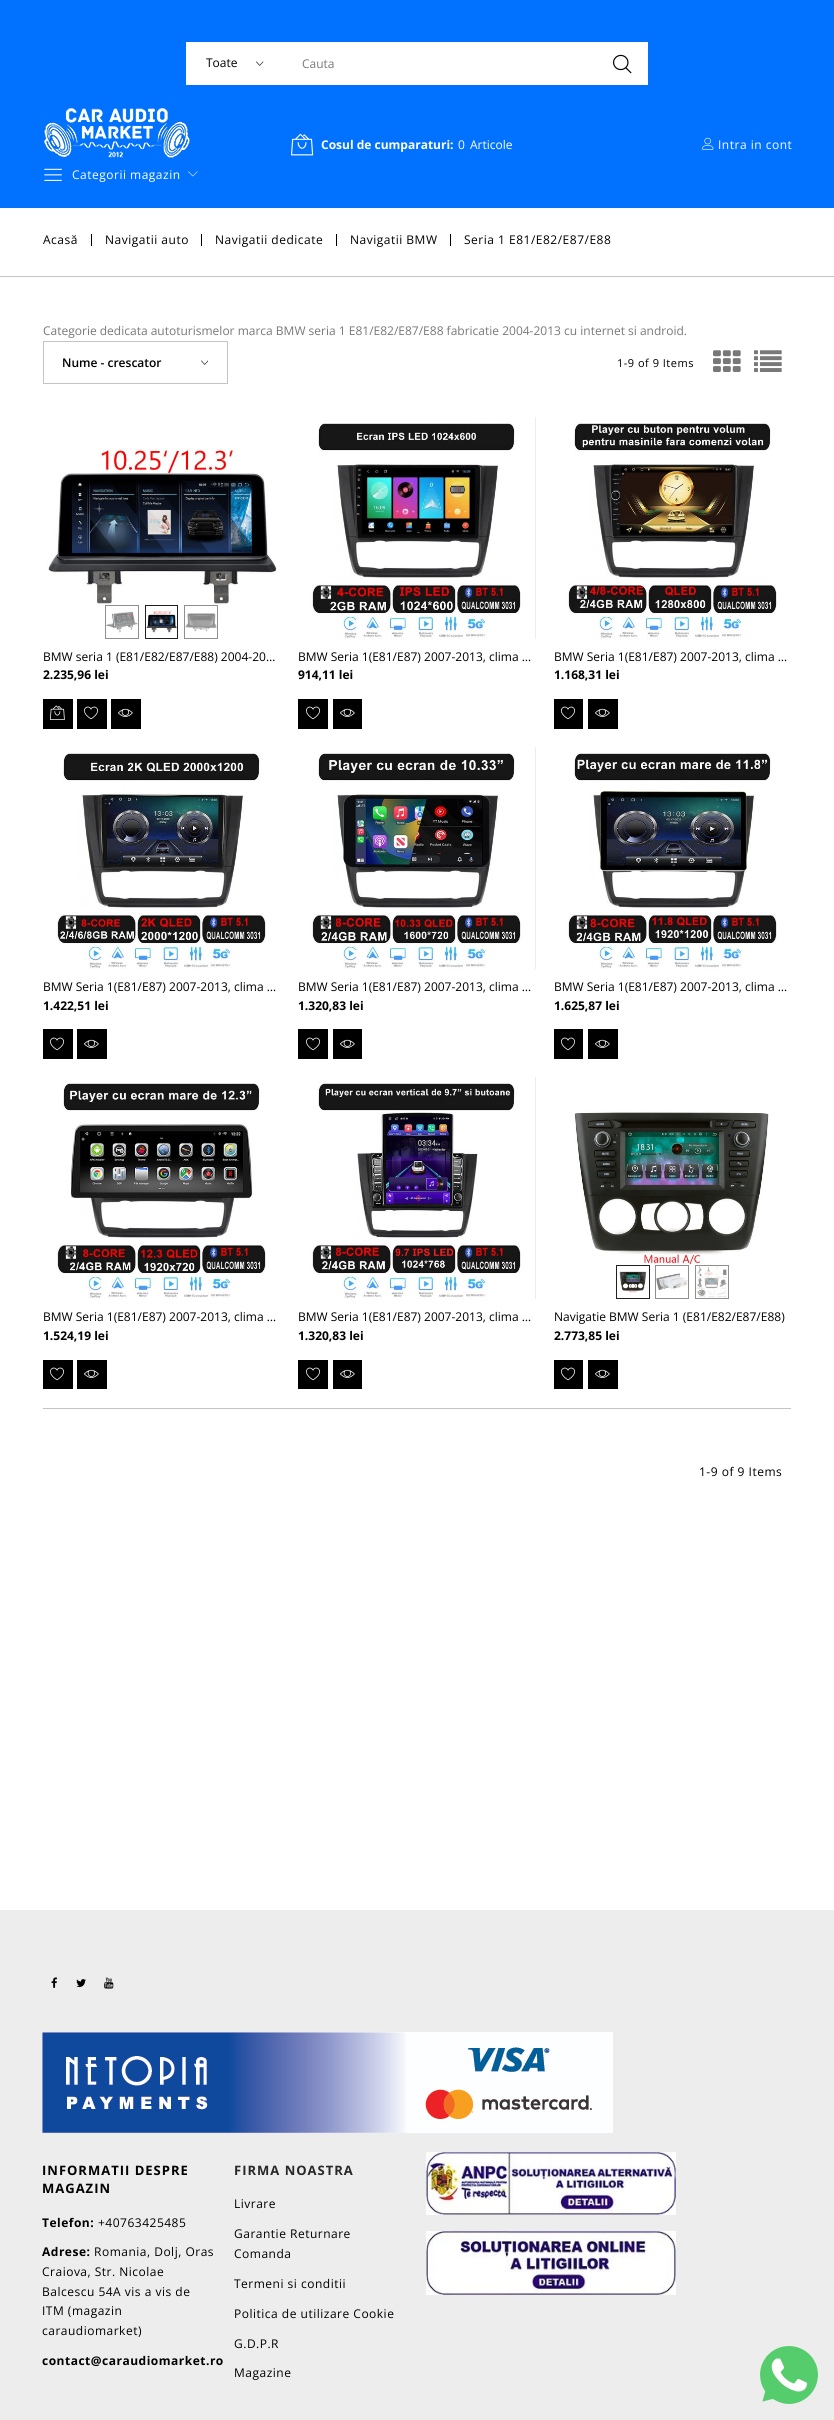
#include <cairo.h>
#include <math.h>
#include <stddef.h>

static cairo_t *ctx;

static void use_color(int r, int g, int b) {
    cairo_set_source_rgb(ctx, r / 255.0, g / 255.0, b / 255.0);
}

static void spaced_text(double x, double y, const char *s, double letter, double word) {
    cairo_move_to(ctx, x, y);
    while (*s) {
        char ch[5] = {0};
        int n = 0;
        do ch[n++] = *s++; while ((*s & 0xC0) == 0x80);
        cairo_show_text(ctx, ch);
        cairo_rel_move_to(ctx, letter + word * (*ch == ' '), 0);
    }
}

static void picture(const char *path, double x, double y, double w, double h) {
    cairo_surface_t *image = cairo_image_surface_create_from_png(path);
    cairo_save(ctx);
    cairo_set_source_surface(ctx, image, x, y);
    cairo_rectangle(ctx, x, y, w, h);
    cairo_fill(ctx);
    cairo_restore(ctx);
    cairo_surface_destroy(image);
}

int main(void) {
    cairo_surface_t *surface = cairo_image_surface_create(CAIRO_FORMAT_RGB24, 834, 2420);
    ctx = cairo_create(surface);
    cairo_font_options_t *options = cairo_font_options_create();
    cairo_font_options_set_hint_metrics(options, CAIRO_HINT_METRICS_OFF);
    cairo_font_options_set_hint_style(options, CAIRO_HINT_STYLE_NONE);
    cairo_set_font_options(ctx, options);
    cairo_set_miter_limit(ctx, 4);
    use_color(255, 255, 255);
    cairo_paint(ctx);
    use_color(0, 114, 255);
    cairo_rectangle(ctx, 0, 0, 834, 208);
    cairo_fill(ctx);
    use_color(255, 255, 255);
    cairo_rectangle(ctx, 186, 42, 97, 43);
    cairo_fill(ctx);
    picture("img1.png", 256, 61, 8, 5);
    cairo_select_font_face(ctx, "Open Sans", CAIRO_FONT_SLANT_NORMAL, CAIRO_FONT_WEIGHT_NORMAL);
    cairo_set_font_size(ctx, 12);
    use_color(0, 0, 0);
    cairo_move_to(ctx, 206, 67);
    cairo_show_text(ctx, "Toate");
    use_color(255, 255, 255);
    cairo_rectangle(ctx, 283, 42, 365, 43);
    cairo_fill(ctx);
    use_color(120, 120, 120);
    cairo_move_to(ctx, 302, 68);
    cairo_show_text(ctx, "Cauta");
    picture("img2.png", 613, 54, 19, 20);
    picture("img3.png", 291, 133, 23, 23);
    cairo_select_font_face(ctx, "Open Sans", CAIRO_FONT_SLANT_NORMAL, CAIRO_FONT_WEIGHT_BOLD);
    use_color(255, 255, 255);
    cairo_move_to(ctx, 321, 149);
    cairo_show_text(ctx, "Cosul de cumparaturi:");
    cairo_select_font_face(ctx, "Open Sans", CAIRO_FONT_SLANT_NORMAL, CAIRO_FONT_WEIGHT_NORMAL);
    cairo_move_to(ctx, 458, 149);
    cairo_show_text(ctx, "0");
    cairo_move_to(ctx, 470, 149);
    cairo_show_text(ctx, "Articole");
    picture("img4.png", 702, 137, 12, 13);
    spaced_text(718, 149, "Intra in cont", 0.5, 0);
    picture("img5.png", 44, 108, 146, 50);
    picture("img6.png", 44, 168, 18, 13);
    spaced_text(72, 179, "Categorii magazin", 0.5, 0);
    picture("img7.png", 188, 171, 10, 6);
    use_color(196, 196, 196);
    cairo_rectangle(ctx, 0, 276, 834, 1);
    cairo_fill(ctx);
    use_color(0, 0, 0);
    spaced_text(43, 244, "Acasă", 0.5, 0);
    cairo_rectangle(ctx, 91, 234, 1, 12);
    cairo_fill(ctx);
    spaced_text(105, 244, "Navigatii auto", 0.5, 0);
    cairo_rectangle(ctx, 201, 234, 1, 12);
    cairo_fill(ctx);
    spaced_text(215, 244, "Navigatii dedicate", 0.5, 0);
    cairo_rectangle(ctx, 336, 234, 1, 12);
    cairo_fill(ctx);
    spaced_text(350, 244, "Navigatii BMW", 0.5, 0);
    cairo_rectangle(ctx, 450, 234, 1, 12);
    cairo_fill(ctx);
    spaced_text(464, 244, "Seria 1 E81/E82/E87/E88", 0.5, 0);
    use_color(120, 120, 120);
    cairo_move_to(ctx, 43, 335);
    cairo_show_text(ctx, "Categorie dedicata autoturismelor marca BMW seria 1 E81/E82/E87/E88 fabricatie 2004-2013 cu internet si android.");
    picture("img8.png", 201, 360, 7, 5);
    cairo_rectangle(ctx, 43.5, 341.5, 184, 42);
    use_color(196, 196, 196);
    cairo_set_line_width(ctx, 1);
    cairo_stroke(ctx);
    cairo_select_font_face(ctx, "Open Sans SemiBold", CAIRO_FONT_SLANT_NORMAL, CAIRO_FONT_WEIGHT_NORMAL);
    use_color(0, 0, 0);
    cairo_move_to(ctx, 62, 367);
    cairo_show_text(ctx, "Nume - crescator");
    cairo_select_font_face(ctx, "Open Sans", CAIRO_FONT_SLANT_NORMAL, CAIRO_FONT_WEIGHT_NORMAL);
    cairo_set_font_size(ctx, 11);
    spaced_text(617, 367, "1-9 of 9 Items", 0.5, 0);
    picture("img9.png", 713, 350, 28, 22);
    picture("img10.png", 754, 350, 28, 22);
    picture("img11.png", 43, 417, 237, 222);
    cairo_rectangle(ctx, 105.5, 605.5, 33, 33);
    use_color(143, 143, 143);
    cairo_stroke(ctx);
    picture("img12.png", 106, 611, 32, 22);
    cairo_rectangle(ctx, 145.5, 605.5, 32, 33);
    use_color(32, 32, 32);
    cairo_stroke(ctx);
    picture("img13.png", 146, 610, 31, 23);
    cairo_rectangle(ctx, 184.5, 605.5, 33, 33);
    use_color(143, 143, 143);
    cairo_stroke(ctx);
    picture("img14.png", 185, 613, 32, 19);
    cairo_set_font_size(ctx, 12);
    use_color(0, 0, 0);
    cairo_move_to(ctx, 43, 661);
    cairo_show_text(ctx, "BMW seria 1 (E81/E82/E87/E88) 2004-20…");
    cairo_select_font_face(ctx, "Open Sans", CAIRO_FONT_SLANT_NORMAL, CAIRO_FONT_WEIGHT_BOLD);
    cairo_move_to(ctx, 43, 679);
    cairo_show_text(ctx, "2.235,96 lei");
    cairo_rectangle(ctx, 43, 699, 30, 30);
    cairo_fill(ctx);
    picture("img15.png", 50, 705, 15, 15);
    cairo_rectangle(ctx, 77, 699, 30, 30);
    cairo_fill(ctx);
    picture("img16.png", 84, 706, 14, 14);
    cairo_rectangle(ctx, 111, 699, 30, 30);
    cairo_fill(ctx);
    picture("img17.png", 118, 708, 15, 9);
    use_color(237, 237, 237);
    cairo_rectangle(ctx, 535, 417, 1, 222);
    cairo_fill(ctx);
    picture("img18.png", 298, 417, 237, 222);
    cairo_select_font_face(ctx, "Open Sans", CAIRO_FONT_SLANT_NORMAL, CAIRO_FONT_WEIGHT_NORMAL);
    use_color(0, 0, 0);
    cairo_move_to(ctx, 298, 661);
    cairo_show_text(ctx, "BMW Seria 1(E81/E87) 2007-2013, clima …");
    cairo_select_font_face(ctx, "Open Sans", CAIRO_FONT_SLANT_NORMAL, CAIRO_FONT_WEIGHT_BOLD);
    cairo_move_to(ctx, 298, 679);
    cairo_show_text(ctx, "914,11 lei");
    cairo_rectangle(ctx, 298, 699, 30, 30);
    cairo_fill(ctx);
    picture("img16.png", 306, 706, 14, 14);
    cairo_rectangle(ctx, 333, 699, 29, 30);
    cairo_fill(ctx);
    picture("img17.png", 340, 708, 15, 9);
    picture("img19.png", 554, 417, 237, 222);
    cairo_select_font_face(ctx, "Open Sans", CAIRO_FONT_SLANT_NORMAL, CAIRO_FONT_WEIGHT_NORMAL);
    cairo_move_to(ctx, 554, 661);
    cairo_show_text(ctx, "BMW Seria 1(E81/E87) 2007-2013, clima …");
    cairo_select_font_face(ctx, "Open Sans", CAIRO_FONT_SLANT_NORMAL, CAIRO_FONT_WEIGHT_BOLD);
    cairo_move_to(ctx, 554, 679);
    cairo_show_text(ctx, "1.168,31 lei");
    cairo_rectangle(ctx, 554, 699, 29, 30);
    cairo_fill(ctx);
    picture("img16.png", 561, 706, 14, 14);
    cairo_rectangle(ctx, 588, 699, 30, 30);
    cairo_fill(ctx);
    picture("img17.png", 595, 708, 15, 9);
    picture("img20.png", 43, 747, 237, 222);
    cairo_select_font_face(ctx, "Open Sans", CAIRO_FONT_SLANT_NORMAL, CAIRO_FONT_WEIGHT_NORMAL);
    cairo_move_to(ctx, 43, 991);
    cairo_show_text(ctx, "BMW Seria 1(E81/E87) 2007-2013, clima …");
    cairo_select_font_face(ctx, "Open Sans", CAIRO_FONT_SLANT_NORMAL, CAIRO_FONT_WEIGHT_BOLD);
    cairo_move_to(ctx, 43, 1010);
    cairo_show_text(ctx, "1.422,51 lei");
    cairo_rectangle(ctx, 43, 1029, 30, 30);
    cairo_fill(ctx);
    picture("img16.png", 50, 1037, 14, 14);
    cairo_rectangle(ctx, 77, 1029, 30, 30);
    cairo_fill(ctx);
    picture("img17.png", 84, 1039, 15, 9);
    use_color(237, 237, 237);
    cairo_rectangle(ctx, 535, 747, 1, 222);
    cairo_fill(ctx);
    picture("img21.png", 298, 747, 237, 222);
    cairo_select_font_face(ctx, "Open Sans", CAIRO_FONT_SLANT_NORMAL, CAIRO_FONT_WEIGHT_NORMAL);
    use_color(0, 0, 0);
    cairo_move_to(ctx, 298, 991);
    cairo_show_text(ctx, "BMW Seria 1(E81/E87) 2007-2013, clima …");
    cairo_select_font_face(ctx, "Open Sans", CAIRO_FONT_SLANT_NORMAL, CAIRO_FONT_WEIGHT_BOLD);
    cairo_move_to(ctx, 298, 1010);
    cairo_show_text(ctx, "1.320,83 lei");
    cairo_rectangle(ctx, 298, 1029, 30, 30);
    cairo_fill(ctx);
    picture("img16.png", 306, 1037, 14, 14);
    cairo_rectangle(ctx, 333, 1029, 29, 30);
    cairo_fill(ctx);
    picture("img17.png", 340, 1039, 15, 9);
    picture("img22.png", 554, 747, 237, 222);
    cairo_select_font_face(ctx, "Open Sans", CAIRO_FONT_SLANT_NORMAL, CAIRO_FONT_WEIGHT_NORMAL);
    cairo_move_to(ctx, 554, 991);
    cairo_show_text(ctx, "BMW Seria 1(E81/E87) 2007-2013, clima …");
    cairo_select_font_face(ctx, "Open Sans", CAIRO_FONT_SLANT_NORMAL, CAIRO_FONT_WEIGHT_BOLD);
    cairo_move_to(ctx, 554, 1010);
    cairo_show_text(ctx, "1.625,87 lei");
    cairo_rectangle(ctx, 554, 1029, 29, 30);
    cairo_fill(ctx);
    picture("img16.png", 561, 1037, 14, 14);
    cairo_rectangle(ctx, 588, 1029, 30, 30);
    cairo_fill(ctx);
    picture("img17.png", 595, 1039, 15, 9);
    picture("img23.png", 43, 1077, 237, 222);
    cairo_select_font_face(ctx, "Open Sans", CAIRO_FONT_SLANT_NORMAL, CAIRO_FONT_WEIGHT_NORMAL);
    cairo_move_to(ctx, 43, 1321);
    cairo_show_text(ctx, "BMW Seria 1(E81/E87) 2007-2013, clima …");
    cairo_select_font_face(ctx, "Open Sans", CAIRO_FONT_SLANT_NORMAL, CAIRO_FONT_WEIGHT_BOLD);
    cairo_move_to(ctx, 43, 1340);
    cairo_show_text(ctx, "1.524,19 lei");
    cairo_rectangle(ctx, 43, 1360, 30, 29);
    cairo_fill(ctx);
    picture("img16.png", 50, 1367, 14, 14);
    cairo_rectangle(ctx, 77, 1360, 30, 29);
    cairo_fill(ctx);
    picture("img17.png", 84, 1369, 15, 9);
    use_color(237, 237, 237);
    cairo_rectangle(ctx, 535, 1077, 1, 222);
    cairo_fill(ctx);
    picture("img24.png", 298, 1077, 237, 222);
    cairo_select_font_face(ctx, "Open Sans", CAIRO_FONT_SLANT_NORMAL, CAIRO_FONT_WEIGHT_NORMAL);
    use_color(0, 0, 0);
    cairo_move_to(ctx, 298, 1321);
    cairo_show_text(ctx, "BMW Seria 1(E81/E87) 2007-2013, clima …");
    cairo_select_font_face(ctx, "Open Sans", CAIRO_FONT_SLANT_NORMAL, CAIRO_FONT_WEIGHT_BOLD);
    cairo_move_to(ctx, 298, 1340);
    cairo_show_text(ctx, "1.320,83 lei");
    cairo_rectangle(ctx, 298, 1360, 30, 29);
    cairo_fill(ctx);
    picture("img16.png", 306, 1367, 14, 14);
    cairo_rectangle(ctx, 333, 1360, 29, 29);
    cairo_fill(ctx);
    picture("img17.png", 340, 1369, 15, 9);
    picture("img25.png", 554, 1077, 237, 222);
    cairo_rectangle(ctx, 616.5, 1265.5, 33, 33);
    use_color(32, 32, 32);
    cairo_stroke(ctx);
    picture("img26.png", 619, 1271, 28, 22);
    cairo_rectangle(ctx, 655.5, 1265.5, 33, 33);
    cairo_set_source_rgba(ctx, 0.125, 0.125, 0.125, 0.5);
    cairo_stroke(ctx);
    picture("img27.png", 656, 1273, 32, 18);
    cairo_rectangle(ctx, 695.5, 1265.5, 33, 33);
    cairo_stroke(ctx);
    picture("img28.png", 696, 1266, 32, 32);
    cairo_select_font_face(ctx, "Open Sans", CAIRO_FONT_SLANT_NORMAL, CAIRO_FONT_WEIGHT_NORMAL);
    use_color(0, 0, 0);
    cairo_move_to(ctx, 554, 1321);
    cairo_show_text(ctx, "Navigatie BMW Seria 1 (E81/E82/E87/E88)");
    cairo_select_font_face(ctx, "Open Sans", CAIRO_FONT_SLANT_NORMAL, CAIRO_FONT_WEIGHT_BOLD);
    cairo_move_to(ctx, 554, 1340);
    cairo_show_text(ctx, "2.773,85 lei");
    cairo_rectangle(ctx, 554, 1360, 29, 29);
    cairo_fill(ctx);
    picture("img16.png", 561, 1367, 14, 14);
    cairo_rectangle(ctx, 588, 1360, 30, 29);
    cairo_fill(ctx);
    picture("img17.png", 595, 1369, 15, 9);
    use_color(196, 196, 196);
    cairo_rectangle(ctx, 43, 1408, 748, 1);
    cairo_fill(ctx);
    cairo_select_font_face(ctx, "Open Sans", CAIRO_FONT_SLANT_NORMAL, CAIRO_FONT_WEIGHT_NORMAL);
    use_color(0, 0, 0);
    spaced_text(699, 1476, "1-9 of 9 Items", 0.5, 0);
    use_color(237, 237, 237);
    cairo_rectangle(ctx, 0, 1910, 834, 510);
    cairo_fill(ctx);
    picture("img29.png", 51, 1977, 6, 11);
    picture("img30.png", 76, 1979, 10, 8);
    picture("img31.png", 104, 1977, 10, 12);
    picture("img32.png", 42, 2032, 571, 101);
    cairo_select_font_face(ctx, "Open Sans", CAIRO_FONT_SLANT_NORMAL, CAIRO_FONT_WEIGHT_BOLD);
    cairo_set_font_size(ctx, 13);
    use_color(0, 0, 0);
    spaced_text(42, 2175, "INFORMATII DESPRE", 1, 0);
    spaced_text(42, 2193, "MAGAZIN", 1, 0);
    cairo_set_font_size(ctx, 12);
    spaced_text(42, 2227, "Telefon:", 0.5, 0);
    cairo_select_font_face(ctx, "Open Sans", CAIRO_FONT_SLANT_NORMAL, CAIRO_FONT_WEIGHT_NORMAL);
    spaced_text(98, 2227, "+40763425485", 0.5, 0);
    cairo_select_font_face(ctx, "Open Sans", CAIRO_FONT_SLANT_NORMAL, CAIRO_FONT_WEIGHT_BOLD);
    spaced_text(42, 2256, "Adrese:", 0.5, 0);
    cairo_select_font_face(ctx, "Open Sans", CAIRO_FONT_SLANT_NORMAL, CAIRO_FONT_WEIGHT_NORMAL);
    spaced_text(94, 2256, "Romania, Dolj, Oras", 0.5, 0);
    spaced_text(42, 2276, "Craiova, Str. Nicolae", 0.5, 0);
    spaced_text(42, 2296, "Balcescu 54A vis a vis de", 0.5, 0);
    spaced_text(42, 2315, "ITM (magazin", 0.5, 0);
    spaced_text(42, 2335, "caraudiomarket)", 0.5, 0);
    cairo_select_font_face(ctx, "Open Sans", CAIRO_FONT_SLANT_NORMAL, CAIRO_FONT_WEIGHT_BOLD);
    spaced_text(42, 2365, "contact@caraudiomarket.ro", 0.5, 0);
    picture("img33.png", 760, 2346, 58, 58);
    cairo_set_font_size(ctx, 13);
    use_color(40, 40, 40);
    spaced_text(234, 2175, "FIRMA NOASTRA", 1, 0);
    cairo_select_font_face(ctx, "Open Sans", CAIRO_FONT_SLANT_NORMAL, CAIRO_FONT_WEIGHT_NORMAL);
    cairo_set_font_size(ctx, 12);
    use_color(0, 0, 0);
    spaced_text(234, 2208, "Livrare", 0.5, 0);
    spaced_text(234, 2238, "Garantie Returnare", 0.5, 0);
    spaced_text(234, 2258, "Comanda", 0.5, 0);
    spaced_text(234, 2288, "Termeni si conditii", 0.5, 0);
    spaced_text(234, 2318, "Politica de utilizare Cookie", 0.5, 0);
    spaced_text(234, 2348, "G.D.P.R", 0.5, 0);
    spaced_text(234, 2377, "Magazine", 0.5, 0);
    picture("img34.png", 426, 2152, 250, 63);
    picture("img35.png", 426, 2231, 250, 64);
    cairo_surface_write_to_png(surface, "result.png");
    cairo_font_options_destroy(options);
    cairo_destroy(ctx);
    cairo_surface_destroy(surface);
    return 0;
}
